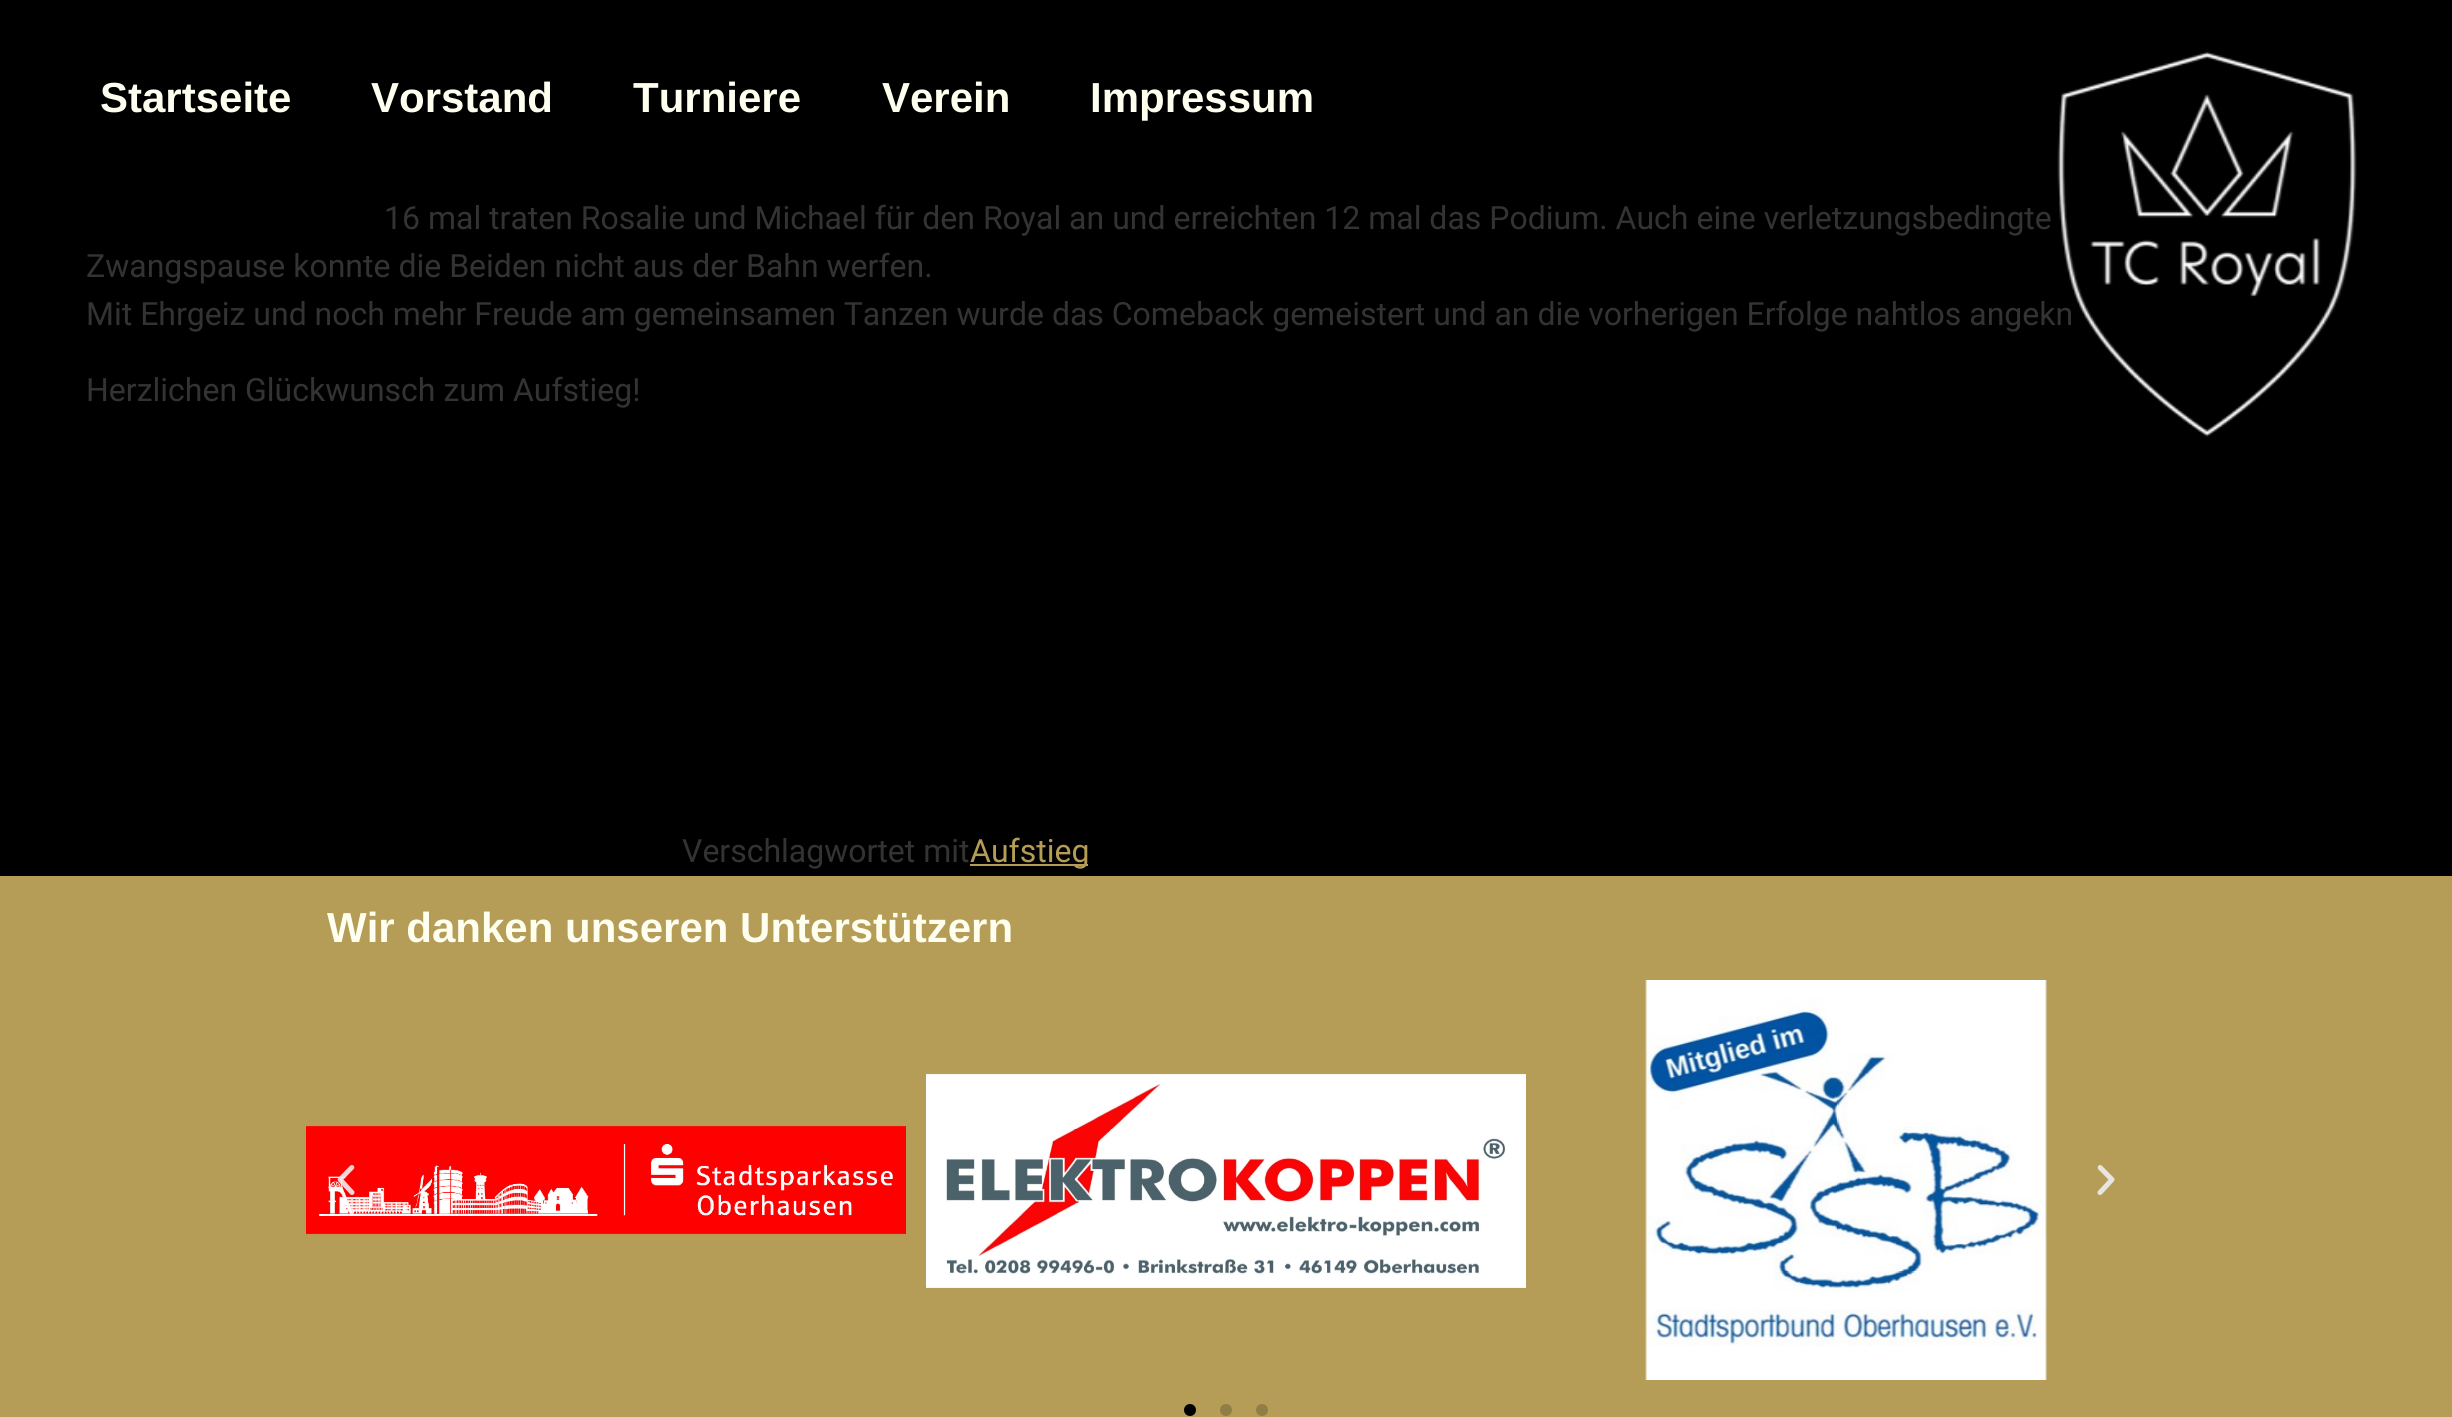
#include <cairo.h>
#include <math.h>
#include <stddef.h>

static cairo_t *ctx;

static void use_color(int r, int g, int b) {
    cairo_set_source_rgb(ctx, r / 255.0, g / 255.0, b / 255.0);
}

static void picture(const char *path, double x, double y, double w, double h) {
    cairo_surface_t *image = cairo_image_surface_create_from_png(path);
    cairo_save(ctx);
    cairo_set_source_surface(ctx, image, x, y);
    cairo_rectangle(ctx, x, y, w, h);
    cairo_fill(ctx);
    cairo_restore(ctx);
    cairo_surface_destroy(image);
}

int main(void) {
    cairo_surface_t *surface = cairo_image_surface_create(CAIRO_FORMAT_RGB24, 2452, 1417);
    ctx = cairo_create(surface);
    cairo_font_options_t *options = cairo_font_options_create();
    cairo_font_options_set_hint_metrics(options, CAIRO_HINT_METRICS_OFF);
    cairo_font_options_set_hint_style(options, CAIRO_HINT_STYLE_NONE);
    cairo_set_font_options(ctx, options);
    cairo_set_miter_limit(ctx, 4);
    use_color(0, 0, 0);
    cairo_paint(ctx);
    cairo_select_font_face(ctx, "Liberation Sans", CAIRO_FONT_SLANT_NORMAL, CAIRO_FONT_WEIGHT_BOLD);
    cairo_set_font_size(ctx, 42);
    use_color(255, 255, 240);
    cairo_move_to(ctx, 100, 112);
    cairo_show_text(ctx, "Startseite");
    cairo_move_to(ctx, 371, 112);
    cairo_show_text(ctx, "Vorstand");
    cairo_move_to(ctx, 633, 112);
    cairo_show_text(ctx, "Turniere");
    cairo_move_to(ctx, 882, 112);
    cairo_show_text(ctx, "Verein");
    cairo_move_to(ctx, 1090, 112);
    cairo_show_text(ctx, "Impressum");
    cairo_select_font_face(ctx, "Roboto", CAIRO_FONT_SLANT_NORMAL, CAIRO_FONT_WEIGHT_NORMAL);
    cairo_set_font_size(ctx, 32);
    use_color(51, 51, 51);
    cairo_move_to(ctx, 86, 325);
    cairo_show_text(ctx, "Mit Ehrgeiz und noch mehr Freude am gemeinsamen Tanzen wurde das Comeback gemeistert und an die vorherigen Erfolge nahtlos angekn");
    picture("img1.png", 2057, 52, 300, 385);
    cairo_move_to(ctx, 384, 229);
    cairo_show_text(ctx, "16 mal traten Rosalie und Michael für den Royal an und erreichten 12 mal das Podium. Auch eine verletzungsbedingte");
    cairo_move_to(ctx, 86, 277);
    cairo_show_text(ctx, "Zwangspause konnte die Beiden nicht aus der Bahn werfen.");
    cairo_move_to(ctx, 86, 401);
    cairo_show_text(ctx, "Herzlichen Glückwunsch zum Aufstieg!");
    cairo_move_to(ctx, 682, 862);
    cairo_show_text(ctx, "Verschlagwortet mit");
    use_color(181, 156, 87);
    cairo_rectangle(ctx, 970, 864, 118, 2);
    cairo_fill(ctx);
    cairo_move_to(ctx, 970, 862);
    cairo_show_text(ctx, "Aufstieg");
    cairo_rectangle(ctx, 0, 876, 2452, 541);
    cairo_fill(ctx);
    cairo_select_font_face(ctx, "Liberation Sans", CAIRO_FONT_SLANT_NORMAL, CAIRO_FONT_WEIGHT_BOLD);
    cairo_set_font_size(ctx, 42);
    use_color(255, 255, 240);
    cairo_move_to(ctx, 327, 942);
    cairo_show_text(ctx, "Wir danken unseren Unterstützern");
    picture("img2.png", 306, 1126, 600, 109);
    picture("img3.png", 926, 1073, 600, 215);
    picture("img4.png", 1645, 980, 402, 400);
    picture("img5.png", 337, 1165, 18, 30);
    picture("img6.png", 2097, 1165, 18, 30);
    use_color(0, 0, 0);
    cairo_arc(ctx, 1190, 1410, 6, 0, 2 * M_PI);
    cairo_fill(ctx);
    use_color(145, 125, 70);
    cairo_arc(ctx, 1226, 1410, 6, 0, 2 * M_PI);
    cairo_fill(ctx);
    cairo_arc(ctx, 1262, 1410, 6, 0, 2 * M_PI);
    cairo_fill(ctx);
    cairo_surface_write_to_png(surface, "result.png");
    cairo_font_options_destroy(options);
    cairo_destroy(ctx);
    cairo_surface_destroy(surface);
    return 0;
}
